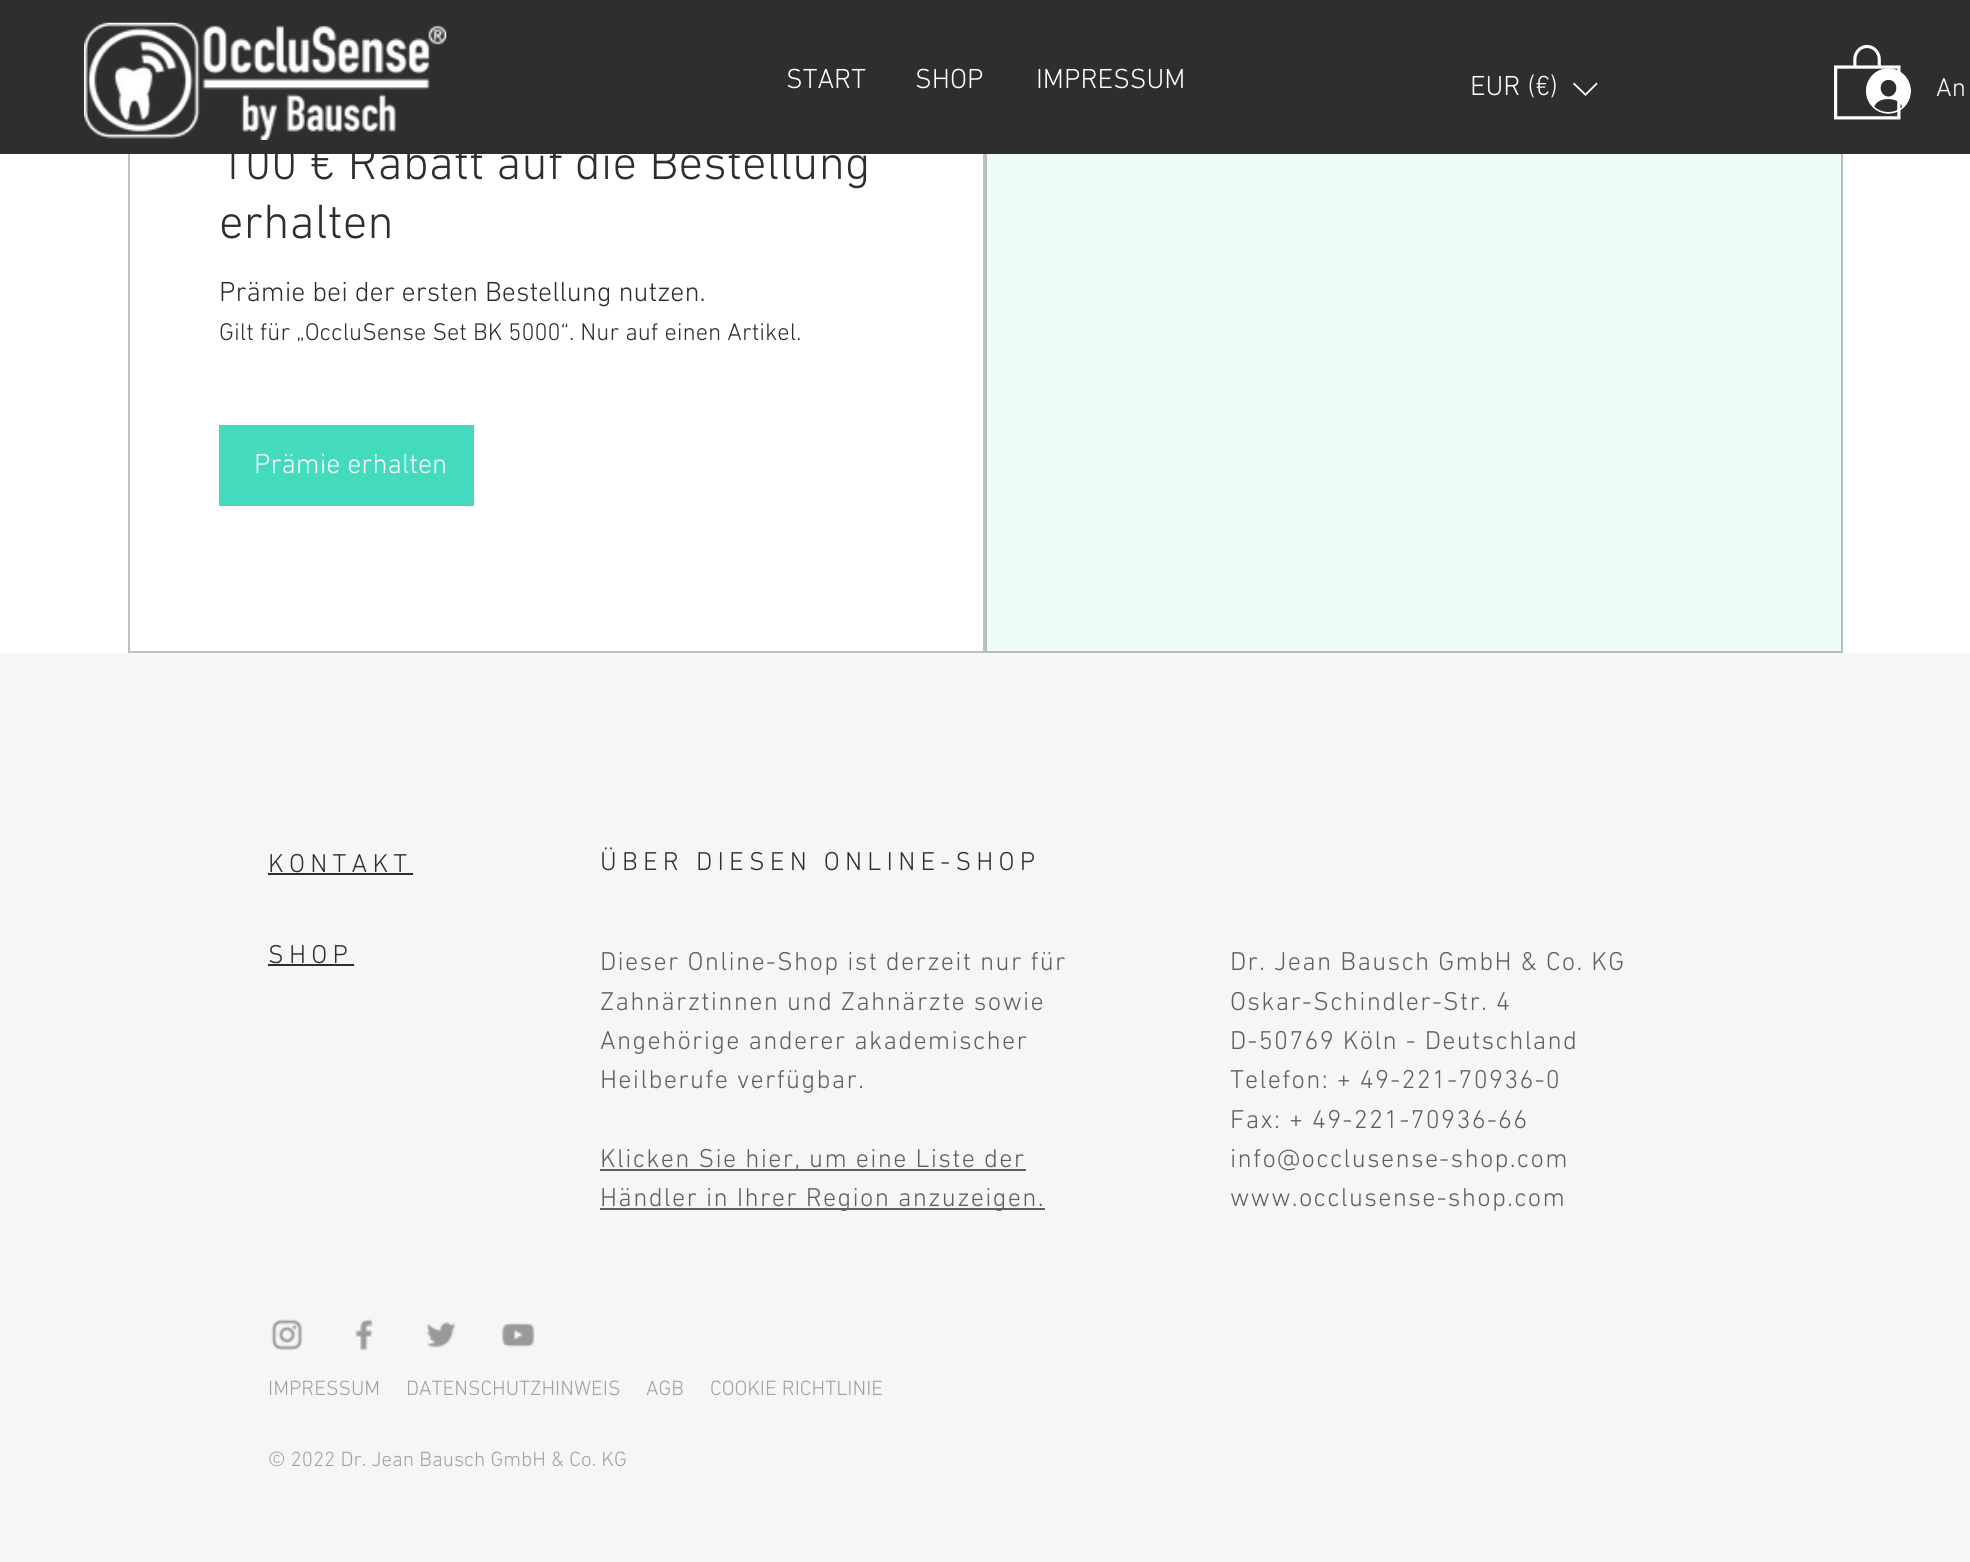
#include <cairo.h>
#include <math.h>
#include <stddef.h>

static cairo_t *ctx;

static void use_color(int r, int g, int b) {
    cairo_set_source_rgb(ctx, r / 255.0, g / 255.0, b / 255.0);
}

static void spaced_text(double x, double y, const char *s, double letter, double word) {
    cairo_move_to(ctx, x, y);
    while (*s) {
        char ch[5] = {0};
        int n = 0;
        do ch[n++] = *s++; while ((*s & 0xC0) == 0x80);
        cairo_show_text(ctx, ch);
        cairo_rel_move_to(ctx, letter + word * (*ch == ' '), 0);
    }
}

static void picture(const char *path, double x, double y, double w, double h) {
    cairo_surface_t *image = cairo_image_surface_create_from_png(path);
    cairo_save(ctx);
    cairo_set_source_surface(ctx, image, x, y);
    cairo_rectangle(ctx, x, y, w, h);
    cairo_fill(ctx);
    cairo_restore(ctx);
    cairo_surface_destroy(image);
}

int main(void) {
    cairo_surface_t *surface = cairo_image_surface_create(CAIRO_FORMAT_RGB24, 1970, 1562);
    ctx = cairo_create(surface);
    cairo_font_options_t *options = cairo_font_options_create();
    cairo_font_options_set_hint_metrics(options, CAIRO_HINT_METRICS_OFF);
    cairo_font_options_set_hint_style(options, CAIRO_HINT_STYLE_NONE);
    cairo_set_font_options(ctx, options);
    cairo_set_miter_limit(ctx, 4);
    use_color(255, 255, 255);
    cairo_paint(ctx);
    cairo_rectangle(ctx, 129, 54, 855, 598);
    use_color(193, 192, 192);
    cairo_stroke(ctx);
    use_color(237, 252, 249);
    cairo_rectangle(ctx, 987, 154, 854, 497);
    cairo_fill(ctx);
    cairo_rectangle(ctx, 986, 54, 856, 598);
    use_color(180, 190, 188);
    cairo_stroke(ctx);
    use_color(47, 46, 46);
    cairo_rectangle(ctx, 0, 0, 1970, 154);
    cairo_fill(ctx);
    picture("img1.png", 84, 22, 363, 118);
    cairo_select_font_face(ctx, "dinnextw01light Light", CAIRO_FONT_SLANT_NORMAL, CAIRO_FONT_WEIGHT_NORMAL);
    cairo_set_font_size(ctx, 28);
    use_color(255, 255, 255);
    cairo_move_to(ctx, 786, 88);
    cairo_show_text(ctx, "START");
    cairo_move_to(ctx, 915, 88);
    cairo_show_text(ctx, "SHOP");
    cairo_move_to(ctx, 1036, 88);
    cairo_show_text(ctx, "IMPRESSUM");
    picture("img3.png", 1866, 68, 45, 46);
    picture("img2.png", 1834, 44, 67, 76);
    cairo_move_to(ctx, 1470, 95);
    cairo_show_text(ctx, "EUR (€)");
    cairo_set_fill_rule(ctx, CAIRO_FILL_RULE_EVEN_ODD);
    cairo_new_path(ctx);
    cairo_move_to(ctx, 1596.5, 82.5);
    cairo_line_to(ctx, 1597.5, 84);
    cairo_line_to(ctx, 1585.5, 96);
    cairo_line_to(ctx, 1573, 84);
    cairo_line_to(ctx, 1574, 82.5);
    cairo_line_to(ctx, 1585.5, 93.5);
    cairo_close_path(ctx);
    cairo_fill(ctx);
    cairo_set_font_size(ctx, 26.25);
    cairo_move_to(ctx, 1936, 96);
    cairo_show_text(ctx, "An");
    cairo_set_font_size(ctx, 49);
    use_color(47, 46, 46);
    cairo_move_to(ctx, 219, 179);
    cairo_show_text(ctx, "100 € Rabatt auf die Bestellung");
    cairo_move_to(ctx, 219, 238);
    cairo_show_text(ctx, "erhalten");
    cairo_set_font_size(ctx, 28);
    cairo_move_to(ctx, 219, 301);
    cairo_show_text(ctx, "Prämie bei der ersten Bestellung nutzen.");
    cairo_set_font_size(ctx, 24.5);
    cairo_move_to(ctx, 219, 340);
    cairo_show_text(ctx, "Gilt für „OccluSense Set BK 5000“. Nur auf einen Artikel.");
    use_color(68, 219, 189);
    cairo_rectangle(ctx, 219, 425, 255, 81);
    cairo_fill(ctx);
    cairo_set_font_size(ctx, 28);
    use_color(255, 255, 255);
    cairo_move_to(ctx, 254, 473);
    cairo_show_text(ctx, "Prämie erhalten");
    use_color(246, 246, 246);
    cairo_rectangle(ctx, 0, 653, 1970, 909);
    cairo_fill(ctx);
    cairo_set_font_size(ctx, 26.25);
    use_color(47, 46, 46);
    spaced_text(268, 872, "KONTAKT", 5.25, 0);
    cairo_rectangle(ctx, 268, 873, 145, 2);
    cairo_fill(ctx);
    spaced_text(600, 870, "ÜBER DIESEN ONLINE-SHOP", 5.25, 0);
    spaced_text(268, 963, "SHOP", 5.25, 0);
    cairo_rectangle(ctx, 268, 964, 86, 2);
    cairo_fill(ctx);
    use_color(96, 94, 94);
    spaced_text(600, 970, "Dieser Online-Shop ist derzeit nur für", 1.3, 0);
    spaced_text(600, 1010, "Zahnärztinnen und Zahnärzte sowie", 1.3, 0);
    spaced_text(600, 1049, "Angehörige anderer akademischer", 1.3, 0);
    spaced_text(600, 1088, "Heilberufe verfügbar.", 1.3, 0);
    cairo_rectangle(ctx, 600, 1169, 426, 2);
    cairo_fill(ctx);
    spaced_text(600, 1167, "Klicken Sie hier, um eine Liste der", 1.3, 0);
    cairo_rectangle(ctx, 600, 1208, 445, 2);
    cairo_fill(ctx);
    spaced_text(600, 1206, "Händler in Ihrer Region anzuzeigen.", 1.3, 0);
    spaced_text(1230, 970, "Dr. Jean Bausch GmbH & Co. KG", 1.3, 0);
    spaced_text(1230, 1010, "Oskar-Schindler-Str. 4", 1.3, 0);
    spaced_text(1230, 1049, "D-50769 Köln - Deutschland", 1.3, 0);
    spaced_text(1230, 1088, "Telefon: + 49-221-70936-0", 1.3, 0);
    spaced_text(1230, 1128, "Fax: + 49-221-70936-66", 1.3, 0);
    spaced_text(1230, 1167, "info@occlusense-shop.com", 1.3, 0);
    spaced_text(1230, 1206, "www.occlusense-shop.com", 1.3, 0);
    picture("img4.png", 271, 1319, 32, 32);
    picture("img5.png", 355, 1319, 18, 32);
    picture("img6.png", 426, 1322, 30, 26);
    picture("img7.png", 501, 1322, 34, 26);
    cairo_set_font_size(ctx, 21);
    use_color(160, 160, 159);
    cairo_move_to(ctx, 268, 1395);
    cairo_show_text(ctx, "IMPRESSUM");
    cairo_move_to(ctx, 406, 1395);
    cairo_show_text(ctx, "DATENSCHUTZHINWEIS");
    cairo_move_to(ctx, 646, 1395);
    cairo_show_text(ctx, "AGB");
    cairo_move_to(ctx, 710, 1395);
    cairo_show_text(ctx, "COOKIE RICHTLINIE");
    cairo_move_to(ctx, 268, 1466);
    cairo_show_text(ctx, "© 2022 Dr. Jean Bausch GmbH & Co. KG");
    cairo_surface_write_to_png(surface, "result.png");
    cairo_font_options_destroy(options);
    cairo_destroy(ctx);
    cairo_surface_destroy(surface);
    return 0;
}
